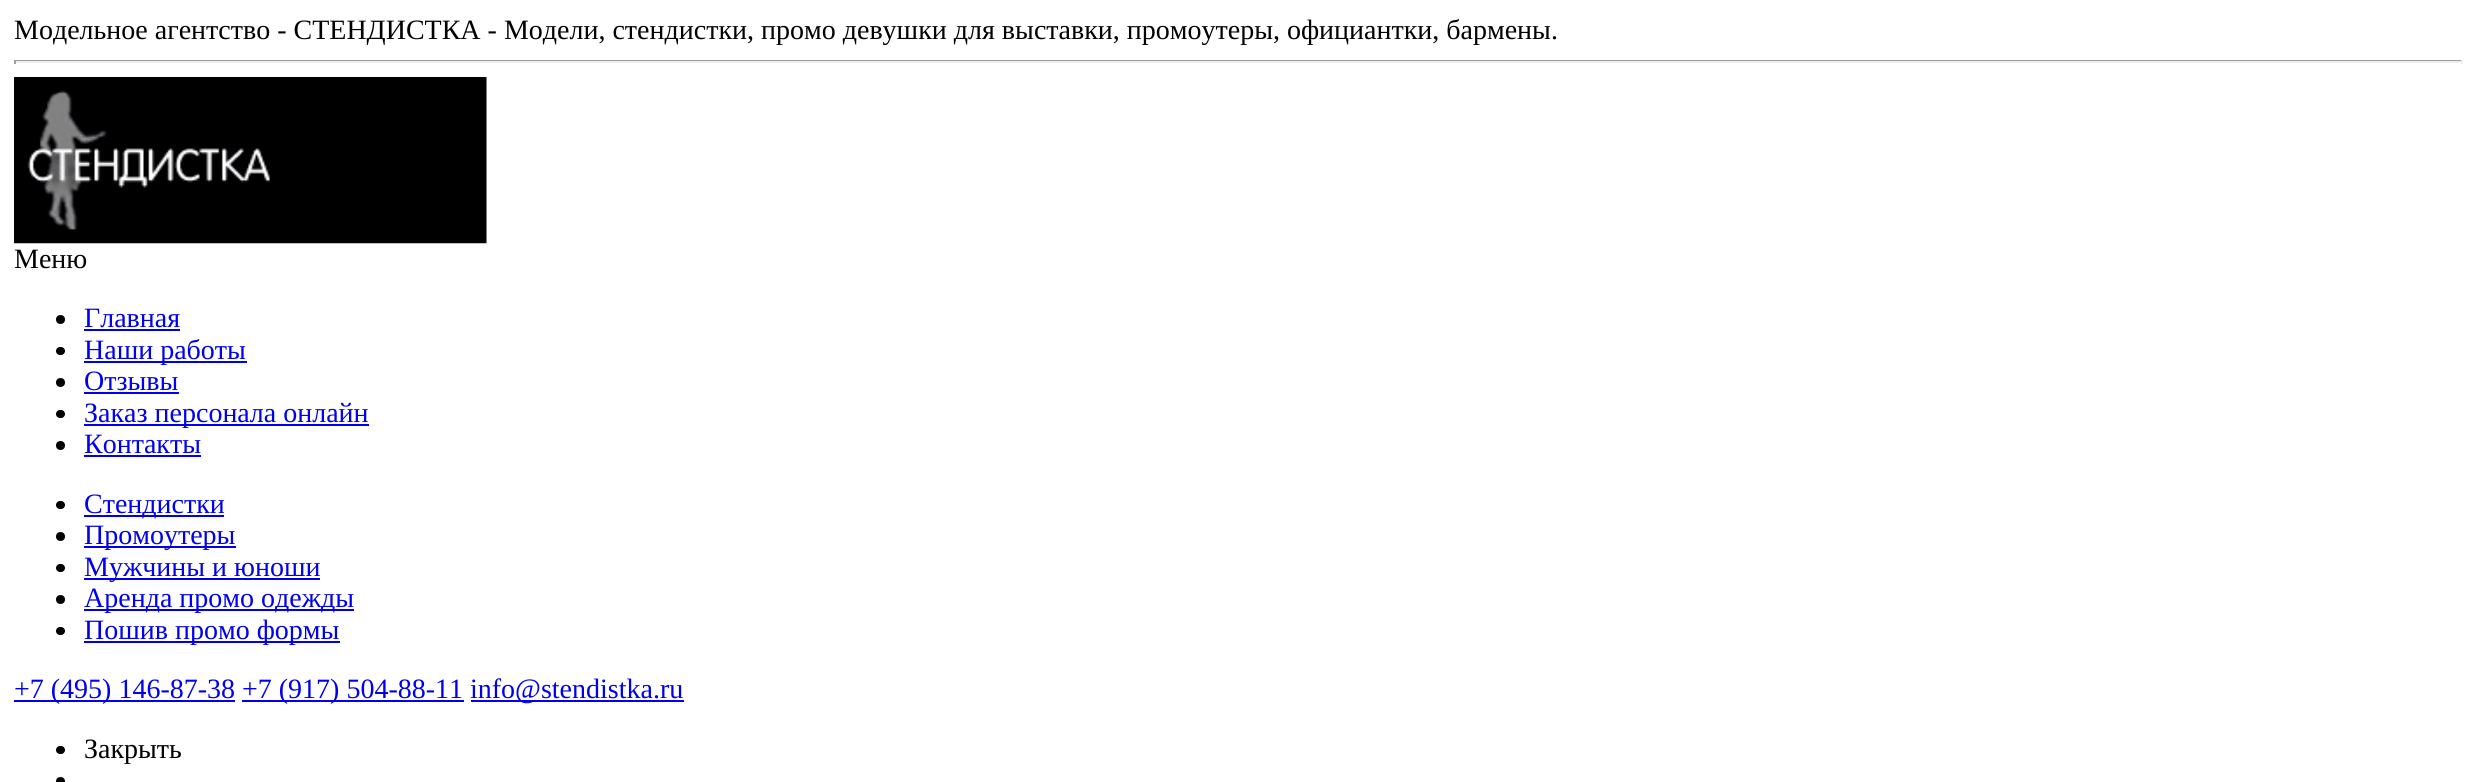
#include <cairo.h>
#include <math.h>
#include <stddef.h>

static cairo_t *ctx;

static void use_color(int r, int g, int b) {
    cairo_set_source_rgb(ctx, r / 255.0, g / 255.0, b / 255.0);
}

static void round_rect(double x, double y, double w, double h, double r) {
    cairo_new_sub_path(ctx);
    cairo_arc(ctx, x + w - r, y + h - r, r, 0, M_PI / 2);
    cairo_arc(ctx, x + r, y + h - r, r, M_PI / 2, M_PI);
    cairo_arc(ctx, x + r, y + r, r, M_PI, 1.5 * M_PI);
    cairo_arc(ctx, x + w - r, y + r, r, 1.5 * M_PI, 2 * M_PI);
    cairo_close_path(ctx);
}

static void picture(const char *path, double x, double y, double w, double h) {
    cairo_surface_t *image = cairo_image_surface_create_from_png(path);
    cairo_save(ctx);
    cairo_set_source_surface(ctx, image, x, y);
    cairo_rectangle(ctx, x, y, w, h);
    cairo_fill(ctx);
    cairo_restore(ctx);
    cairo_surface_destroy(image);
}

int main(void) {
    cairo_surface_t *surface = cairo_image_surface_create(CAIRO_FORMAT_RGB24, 2476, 782);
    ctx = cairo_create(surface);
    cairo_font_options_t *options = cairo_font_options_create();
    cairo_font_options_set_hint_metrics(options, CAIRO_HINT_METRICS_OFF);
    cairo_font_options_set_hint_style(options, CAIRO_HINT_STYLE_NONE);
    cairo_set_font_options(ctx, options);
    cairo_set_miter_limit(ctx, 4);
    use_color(255, 255, 255);
    cairo_paint(ctx);
    cairo_select_font_face(ctx, "Liberation Serif", CAIRO_FONT_SLANT_NORMAL, CAIRO_FONT_WEIGHT_NORMAL);
    cairo_set_font_size(ctx, 28);
    use_color(0, 0, 0);
    cairo_move_to(ctx, 14, 39);
    cairo_show_text(ctx, "Модельное агентство - СТЕНДИСТКА - Модели, стендистки, промо девушки для выставки, промоутеры, официантки, бармены.");
    use_color(159, 159, 159);
    cairo_rectangle(ctx, 14, 60, 2448, 1);
    cairo_fill(ctx);
    use_color(238, 238, 238);
    cairo_rectangle(ctx, 2461, 60, 2, 4);
    cairo_fill(ctx);
    cairo_rectangle(ctx, 14, 61, 2448, 2);
    cairo_fill(ctx);
    use_color(159, 159, 159);
    cairo_rectangle(ctx, 14, 60, 2, 4);
    cairo_fill(ctx);
    picture("img1.png", 14, 77, 473, 167);
    use_color(0, 0, 0);
    cairo_move_to(ctx, 14, 268);
    cairo_show_text(ctx, "Меню");
    cairo_new_path(ctx);
    cairo_arc(ctx, 60.5, 319.5, 4.5, 0, 2 * M_PI);
    cairo_fill(ctx);
    use_color(0, 0, 238);
    cairo_move_to(ctx, 84, 327);
    cairo_show_text(ctx, "Главная");
    cairo_rectangle(ctx, 84, 329, 96, 2);
    cairo_fill(ctx);
    use_color(0, 0, 0);
    round_rect(56, 347, 9, 8, 4);
    cairo_fill(ctx);
    use_color(0, 0, 238);
    cairo_rectangle(ctx, 84, 361, 163, 2);
    cairo_fill(ctx);
    cairo_move_to(ctx, 84, 359);
    cairo_show_text(ctx, "Наши работы");
    use_color(0, 0, 0);
    cairo_new_path(ctx);
    cairo_arc(ctx, 60.5, 382.5, 4.5, 0, 2 * M_PI);
    cairo_fill(ctx);
    use_color(0, 0, 238);
    cairo_move_to(ctx, 84, 390);
    cairo_show_text(ctx, "Отзывы");
    cairo_rectangle(ctx, 84, 392, 95, 2);
    cairo_fill(ctx);
    use_color(0, 0, 0);
    round_rect(56, 410, 9, 8, 4);
    cairo_fill(ctx);
    use_color(0, 0, 238);
    cairo_rectangle(ctx, 84, 424, 285, 2);
    cairo_fill(ctx);
    cairo_move_to(ctx, 84, 422);
    cairo_show_text(ctx, "Заказ персонала онлайн");
    use_color(0, 0, 0);
    cairo_new_path(ctx);
    cairo_arc(ctx, 60.5, 445.5, 4.5, 0, 2 * M_PI);
    cairo_fill(ctx);
    use_color(0, 0, 238);
    cairo_move_to(ctx, 84, 453);
    cairo_show_text(ctx, "Контакты");
    cairo_rectangle(ctx, 84, 455, 117, 2);
    cairo_fill(ctx);
    use_color(0, 0, 0);
    round_rect(56, 501, 9, 8, 4);
    cairo_fill(ctx);
    use_color(0, 0, 238);
    cairo_rectangle(ctx, 84, 515, 140, 2);
    cairo_fill(ctx);
    cairo_move_to(ctx, 84, 513);
    cairo_show_text(ctx, "Стендистки");
    use_color(0, 0, 0);
    cairo_new_path(ctx);
    cairo_arc(ctx, 60.5, 536.5, 4.5, 0, 2 * M_PI);
    cairo_fill(ctx);
    use_color(0, 0, 238);
    cairo_rectangle(ctx, 84, 546, 152, 2);
    cairo_fill(ctx);
    cairo_move_to(ctx, 84, 544);
    cairo_show_text(ctx, "Промоутеры");
    use_color(0, 0, 0);
    round_rect(56, 564, 9, 8, 4);
    cairo_fill(ctx);
    use_color(0, 0, 238);
    cairo_rectangle(ctx, 84, 578, 236, 2);
    cairo_fill(ctx);
    cairo_move_to(ctx, 84, 576);
    cairo_show_text(ctx, "Мужчины и юноши");
    use_color(0, 0, 0);
    cairo_new_path(ctx);
    cairo_arc(ctx, 60.5, 599.5, 4.5, 0, 2 * M_PI);
    cairo_fill(ctx);
    use_color(0, 0, 238);
    cairo_rectangle(ctx, 84, 609, 270, 2);
    cairo_fill(ctx);
    cairo_move_to(ctx, 84, 607);
    cairo_show_text(ctx, "Аренда промо одежды");
    use_color(0, 0, 0);
    round_rect(56, 627, 9, 8, 4);
    cairo_fill(ctx);
    use_color(0, 0, 238);
    cairo_rectangle(ctx, 84, 641, 256, 2);
    cairo_fill(ctx);
    cairo_move_to(ctx, 84, 639);
    cairo_show_text(ctx, "Пошив промо формы");
    cairo_rectangle(ctx, 14, 700, 221, 2);
    cairo_fill(ctx);
    cairo_move_to(ctx, 14, 698);
    cairo_show_text(ctx, "+7 (495) 146-87-38");
    cairo_rectangle(ctx, 242, 700, 222, 2);
    cairo_fill(ctx);
    cairo_move_to(ctx, 242, 698);
    cairo_show_text(ctx, "+7 (917) 504-88-11");
    cairo_rectangle(ctx, 471, 700, 213, 2);
    cairo_fill(ctx);
    cairo_move_to(ctx, 470, 698);
    cairo_show_text(ctx, "info@stendistka.ru");
    use_color(0, 0, 0);
    round_rect(56, 746, 9, 8, 4);
    cairo_fill(ctx);
    cairo_move_to(ctx, 84, 758);
    cairo_show_text(ctx, "Закрыть");
    cairo_new_path(ctx);
    cairo_arc(ctx, 60.5, 781.5, 4.5, 0, 2 * M_PI);
    cairo_fill(ctx);
    cairo_surface_write_to_png(surface, "result.png");
    cairo_font_options_destroy(options);
    cairo_destroy(ctx);
    cairo_surface_destroy(surface);
    return 0;
}
